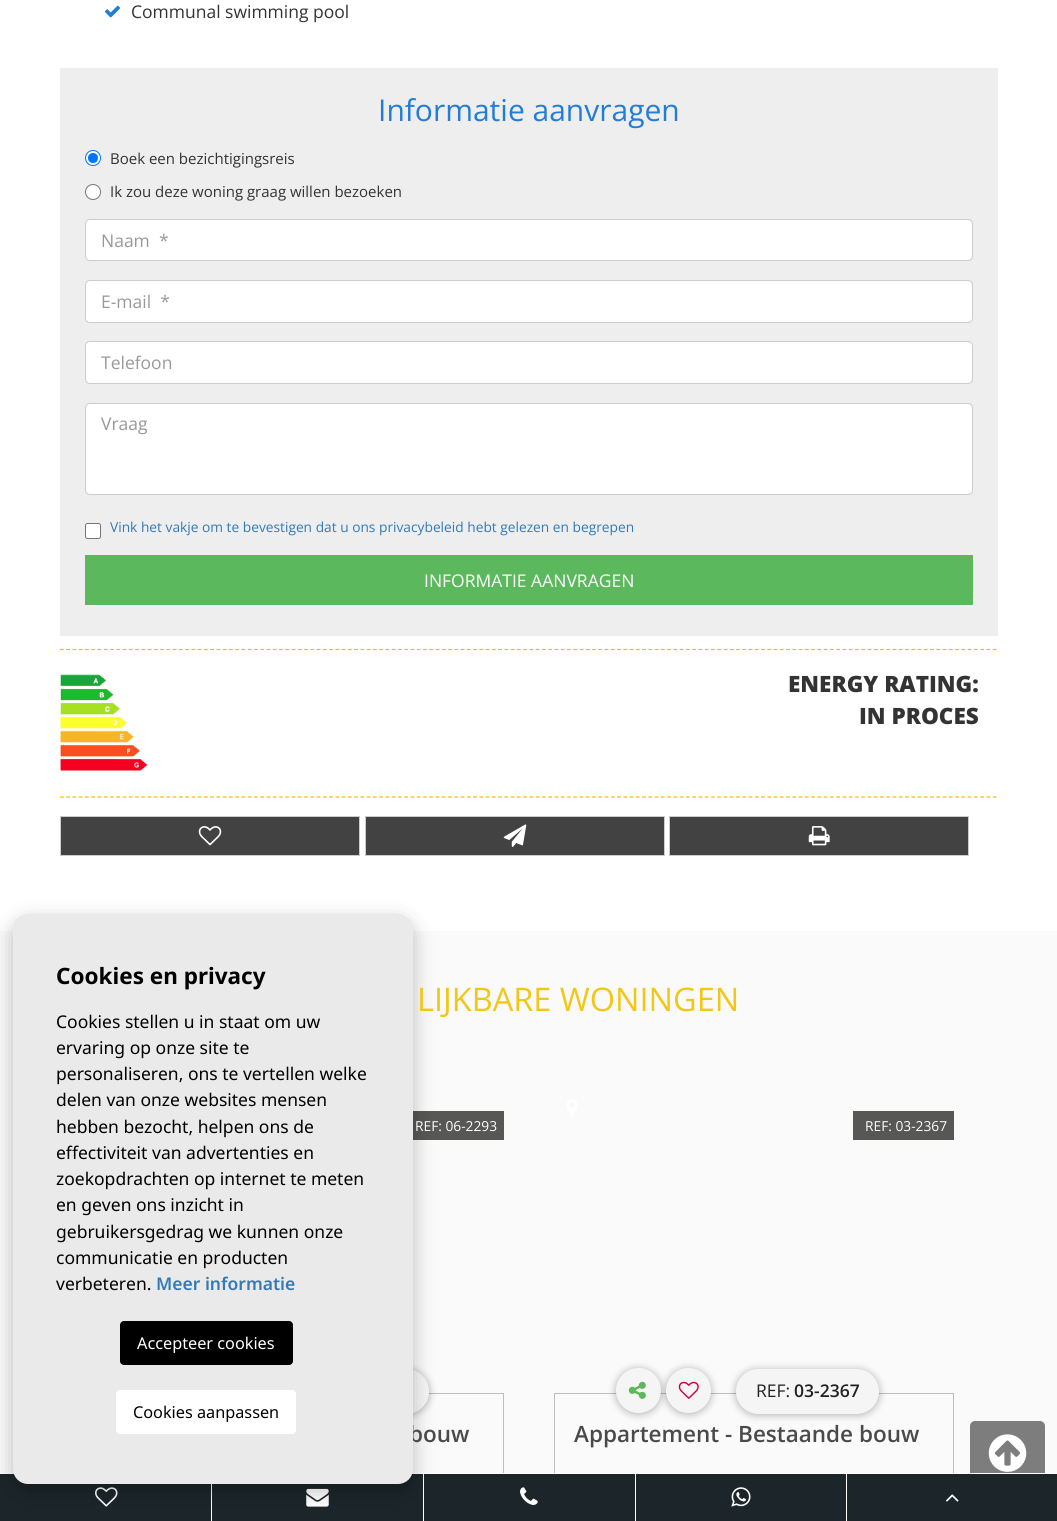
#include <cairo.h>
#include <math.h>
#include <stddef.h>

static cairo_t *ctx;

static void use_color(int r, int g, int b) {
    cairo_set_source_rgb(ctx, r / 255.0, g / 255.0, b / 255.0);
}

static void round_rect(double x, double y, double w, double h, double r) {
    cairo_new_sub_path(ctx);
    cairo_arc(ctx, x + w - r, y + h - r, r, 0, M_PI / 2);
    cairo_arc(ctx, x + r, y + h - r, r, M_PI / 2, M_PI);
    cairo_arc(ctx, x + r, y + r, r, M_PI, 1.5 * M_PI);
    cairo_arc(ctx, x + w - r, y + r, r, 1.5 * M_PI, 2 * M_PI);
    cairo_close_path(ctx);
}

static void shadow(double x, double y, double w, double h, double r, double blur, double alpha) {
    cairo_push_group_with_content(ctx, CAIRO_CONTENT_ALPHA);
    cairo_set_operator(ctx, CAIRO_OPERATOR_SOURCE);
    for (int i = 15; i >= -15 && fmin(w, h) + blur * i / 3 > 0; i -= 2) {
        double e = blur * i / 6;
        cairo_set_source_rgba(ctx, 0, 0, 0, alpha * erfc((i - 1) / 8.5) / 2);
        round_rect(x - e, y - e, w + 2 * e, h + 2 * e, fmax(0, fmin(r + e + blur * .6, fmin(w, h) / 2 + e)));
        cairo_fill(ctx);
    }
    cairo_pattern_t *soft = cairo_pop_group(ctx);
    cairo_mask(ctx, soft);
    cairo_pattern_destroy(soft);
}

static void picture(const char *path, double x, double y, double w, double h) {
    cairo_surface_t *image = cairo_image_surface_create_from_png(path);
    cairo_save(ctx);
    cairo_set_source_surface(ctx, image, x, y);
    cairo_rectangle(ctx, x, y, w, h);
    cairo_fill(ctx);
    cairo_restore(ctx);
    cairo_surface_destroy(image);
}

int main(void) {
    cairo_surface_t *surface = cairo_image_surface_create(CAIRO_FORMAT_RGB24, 1057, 1521);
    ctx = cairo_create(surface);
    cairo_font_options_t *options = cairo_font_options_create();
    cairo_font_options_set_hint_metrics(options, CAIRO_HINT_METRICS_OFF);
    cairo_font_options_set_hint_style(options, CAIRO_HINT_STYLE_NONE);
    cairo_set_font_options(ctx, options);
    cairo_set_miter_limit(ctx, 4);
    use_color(255, 255, 255);
    cairo_paint(ctx);
    picture("img1.png", 105, 5, 15, 13);
    cairo_select_font_face(ctx, "Open Sans", CAIRO_FONT_SLANT_NORMAL, CAIRO_FONT_WEIGHT_NORMAL);
    cairo_set_font_size(ctx, 17.5);
    use_color(51, 51, 51);
    cairo_move_to(ctx, 131, 18);
    cairo_show_text(ctx, "Communal swimming pool");
    use_color(238, 238, 238);
    cairo_rectangle(ctx, 60, 68, 938, 568);
    cairo_fill(ctx);
    cairo_set_font_size(ctx, 30);
    use_color(33, 125, 215);
    cairo_move_to(ctx, 378, 121);
    cairo_show_text(ctx, "Informatie aanvragen");
    use_color(255, 255, 255);
    cairo_new_path(ctx);
    cairo_arc(ctx, 93, 158, 7.5, 0, 2 * M_PI);
    cairo_fill_preserve(ctx);
    use_color(0, 117, 255);
    cairo_set_line_width(ctx, 1);
    cairo_stroke(ctx);
    cairo_arc(ctx, 93, 158, 5, 0, 2 * M_PI);
    cairo_fill(ctx);
    cairo_set_font_size(ctx, 15);
    use_color(51, 51, 51);
    cairo_move_to(ctx, 110, 164);
    cairo_show_text(ctx, "Boek een bezichtigingsreis");
    use_color(255, 255, 255);
    cairo_new_path(ctx);
    cairo_arc(ctx, 93, 192, 7.5, 0, 2 * M_PI);
    cairo_fill_preserve(ctx);
    use_color(118, 118, 118);
    cairo_stroke(ctx);
    use_color(51, 51, 51);
    cairo_move_to(ctx, 110, 197);
    cairo_show_text(ctx, "Ik zou deze woning graag willen bezoeken");
    use_color(255, 255, 255);
    round_rect(85.5, 219.5, 887, 41, 4.5);
    cairo_fill_preserve(ctx);
    use_color(204, 204, 204);
    cairo_stroke(ctx);
    cairo_set_font_size(ctx, 17.5);
    use_color(153, 153, 153);
    cairo_move_to(ctx, 101, 247);
    cairo_show_text(ctx, "Naam  *");
    use_color(255, 255, 255);
    round_rect(85.5, 280.5, 887, 42, 4.5);
    cairo_fill_preserve(ctx);
    use_color(204, 204, 204);
    cairo_stroke(ctx);
    use_color(153, 153, 153);
    cairo_move_to(ctx, 101, 308);
    cairo_show_text(ctx, "E-mail  *");
    use_color(255, 255, 255);
    round_rect(85.5, 341.5, 887, 42, 4.5);
    cairo_fill_preserve(ctx);
    use_color(204, 204, 204);
    cairo_stroke(ctx);
    use_color(153, 153, 153);
    cairo_move_to(ctx, 101, 369);
    cairo_show_text(ctx, "Telefoon");
    use_color(255, 255, 255);
    round_rect(85.5, 403.5, 887, 91, 4.5);
    cairo_fill_preserve(ctx);
    use_color(204, 204, 204);
    cairo_stroke(ctx);
    use_color(153, 153, 153);
    cairo_move_to(ctx, 101, 430);
    cairo_show_text(ctx, "Vraag");
    use_color(255, 255, 255);
    round_rect(85.5, 523.5, 15, 15, 2);
    cairo_fill_preserve(ctx);
    use_color(118, 118, 118);
    cairo_stroke(ctx);
    cairo_set_font_size(ctx, 13.75);
    use_color(51, 122, 183);
    cairo_move_to(ctx, 110, 532);
    cairo_show_text(ctx, "Vink het vakje om te bevestigen dat u ons privacybeleid hebt gelezen en begrepen");
    use_color(92, 184, 92);
    cairo_rectangle(ctx, 85, 555, 888, 50);
    cairo_fill(ctx);
    cairo_set_font_size(ctx, 17.5);
    use_color(255, 255, 255);
    cairo_move_to(ctx, 424, 587);
    cairo_show_text(ctx, "INFORMATIE AANVRAGEN");
    cairo_new_path(ctx);
    cairo_move_to(ctx, 60, 649.5);
    cairo_line_to(ctx, 997.5, 649.5);
    use_color(242, 191, 0);
    cairo_set_line_width(ctx, 1.2);
    cairo_set_dash(ctx, (double[]){3.75, 2.51}, 2, 0);
    cairo_stroke(ctx);
    cairo_new_path(ctx);
    cairo_move_to(ctx, 60, 797);
    cairo_line_to(ctx, 997.5, 797);
    cairo_stroke(ctx);
    picture("img2.png", 60, 674, 88, 97);
    cairo_select_font_face(ctx, "Open Sans ExtraBold", CAIRO_FONT_SLANT_NORMAL, CAIRO_FONT_WEIGHT_NORMAL);
    cairo_set_font_size(ctx, 22.5);
    use_color(51, 51, 51);
    cairo_move_to(ctx, 788, 692);
    cairo_show_text(ctx, "ENERGY RATING:");
    cairo_move_to(ctx, 859, 724);
    cairo_show_text(ctx, "IN PROCES");
    use_color(66, 66, 66);
    cairo_rectangle(ctx, 60.5, 816.5, 299, 39);
    cairo_fill_preserve(ctx);
    use_color(204, 204, 204);
    cairo_set_line_width(ctx, 1);
    cairo_set_dash(ctx, NULL, 0, 0);
    cairo_stroke(ctx);
    picture("img3.png", 198, 826, 24, 20);
    use_color(66, 66, 66);
    cairo_rectangle(ctx, 365.5, 816.5, 299, 39);
    cairo_fill_preserve(ctx);
    use_color(204, 204, 204);
    cairo_stroke(ctx);
    picture("img4.png", 503, 824, 24, 23);
    use_color(66, 66, 66);
    cairo_rectangle(ctx, 669.5, 816.5, 299, 39);
    cairo_fill_preserve(ctx);
    use_color(204, 204, 204);
    cairo_stroke(ctx);
    picture("img5.png", 808, 826, 22, 20);
    use_color(250, 250, 250);
    cairo_rectangle(ctx, 0, 931, 1057, 542);
    cairo_fill(ctx);
    use_color(87, 87, 86);
    cairo_rectangle(ctx, 413, 1111, 91, 29);
    cairo_fill(ctx);
    cairo_rectangle(ctx, 104.5, 1393.5, 399, 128);
    use_color(189, 189, 189);
    cairo_stroke(ctx);
    use_color(0, 0, 0);
    shadow(286, 1370, 143, 45, 22.5, 4, 0.3);
    use_color(245, 245, 245);
    round_rect(286, 1369, 143, 45, 22.5);
    cairo_fill(ctx);
    cairo_rectangle(ctx, 554.5, 1393.5, 399, 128);
    use_color(189, 189, 189);
    cairo_stroke(ctx);
    use_color(125, 125, 125);
    round_rect(970, 1421, 75, 63, 5);
    cairo_fill(ctx);
    use_color(28, 37, 42);
    cairo_rectangle(ctx, 0, 1474, 1057, 47);
    cairo_fill(ctx);
    use_color(255, 255, 255);
    cairo_rectangle(ctx, 104, 1473, 941, 1);
    cairo_fill(ctx);
    picture("img10.png", 95, 1487, 23, 20);
    cairo_rectangle(ctx, 211, 1484, 1, 37);
    cairo_fill(ctx);
    picture("img11.png", 306, 1488, 23, 19);
    cairo_rectangle(ctx, 423, 1474, 1, 47);
    cairo_fill(ctx);
    use_color(0, 0, 0);
    shadow(13, 921, 400, 570, 15, 10, 0.25);
    cairo_select_font_face(ctx, "Open Sans SemiBold", CAIRO_FONT_SLANT_NORMAL, CAIRO_FONT_WEIGHT_NORMAL);
    use_color(74, 74, 74);
    cairo_move_to(ctx, 409, 1442);
    cairo_show_text(ctx, "bouw");
    use_color(234, 234, 234);
    round_rect(13, 914, 400, 570, 15);
    cairo_fill(ctx);
    cairo_select_font_face(ctx, "Noto Sans", CAIRO_FONT_SLANT_NORMAL, CAIRO_FONT_WEIGHT_BOLD);
    use_color(0, 0, 0);
    cairo_move_to(ctx, 56, 984);
    cairo_show_text(ctx, "Cookies en privacy");
    cairo_select_font_face(ctx, "Noto Sans", CAIRO_FONT_SLANT_NORMAL, CAIRO_FONT_WEIGHT_NORMAL);
    cairo_set_font_size(ctx, 17.5);
    cairo_move_to(ctx, 56, 1028);
    cairo_show_text(ctx, "Cookies stellen u in staat om uw");
    cairo_move_to(ctx, 56, 1054);
    cairo_show_text(ctx, "ervaring op onze site te");
    cairo_move_to(ctx, 56, 1080);
    cairo_show_text(ctx, "personaliseren, ons te vertellen welke");
    cairo_move_to(ctx, 56, 1106);
    cairo_show_text(ctx, "delen van onze websites mensen");
    cairo_move_to(ctx, 56, 1133);
    cairo_show_text(ctx, "hebben bezocht, helpen ons de");
    cairo_move_to(ctx, 56, 1159);
    cairo_show_text(ctx, "effectiviteit van advertenties en");
    cairo_move_to(ctx, 56, 1185);
    cairo_show_text(ctx, "zoekopdrachten op internet te meten");
    cairo_move_to(ctx, 56, 1211);
    cairo_show_text(ctx, "en geven ons inzicht in");
    cairo_move_to(ctx, 56, 1238);
    cairo_show_text(ctx, "gebruikersgedrag we kunnen onze");
    cairo_move_to(ctx, 56, 1264);
    cairo_show_text(ctx, "communicatie en producten");
    cairo_move_to(ctx, 56, 1290);
    cairo_show_text(ctx, "verbeteren.");
    cairo_select_font_face(ctx, "Noto Sans SemiBold", CAIRO_FONT_SLANT_NORMAL, CAIRO_FONT_WEIGHT_NORMAL);
    use_color(51, 122, 183);
    cairo_move_to(ctx, 156, 1290);
    cairo_show_text(ctx, "Meer informatie");
    use_color(0, 0, 0);
    round_rect(120, 1321, 173, 44, 4);
    cairo_fill(ctx);
    cairo_select_font_face(ctx, "Noto Sans", CAIRO_FONT_SLANT_NORMAL, CAIRO_FONT_WEIGHT_NORMAL);
    cairo_set_font_size(ctx, 16.25);
    use_color(255, 255, 255);
    cairo_move_to(ctx, 137, 1349);
    cairo_show_text(ctx, "Accepteer cookies");
    round_rect(116, 1390, 180, 44, 4);
    cairo_fill(ctx);
    use_color(0, 0, 0);
    cairo_move_to(ctx, 133, 1418);
    cairo_show_text(ctx, "Cookies aanpassen");
    cairo_select_font_face(ctx, "Open Sans", CAIRO_FONT_SLANT_NORMAL, CAIRO_FONT_WEIGHT_NORMAL);
    cairo_set_font_size(ctx, 32.5);
    use_color(243, 199, 23);
    cairo_move_to(ctx, 417, 1011);
    cairo_show_text(ctx, "LIJKBARE WONINGEN");
    cairo_set_font_size(ctx, 13.75);
    use_color(255, 255, 255);
    cairo_move_to(ctx, 415, 1131);
    cairo_show_text(ctx, "REF: 06-2293");
    picture("img6.png", 567, 1100, 10, 16);
    use_color(87, 87, 86);
    cairo_rectangle(ctx, 853, 1111, 101, 29);
    cairo_fill(ctx);
    use_color(255, 255, 255);
    cairo_move_to(ctx, 865, 1131);
    cairo_show_text(ctx, "REF: 03-2367");
    use_color(0, 0, 0);
    shadow(616, 1369, 45, 45, 22.5, 4, 0.3);
    use_color(245, 245, 245);
    cairo_arc(ctx, 638.5, 1390.5, 22.5, 0, 2 * M_PI);
    cairo_fill(ctx);
    picture("img7.png", 628, 1381, 18, 18);
    use_color(0, 0, 0);
    shadow(666, 1369, 45, 45, 22.5, 4, 0.3);
    use_color(245, 245, 245);
    cairo_arc(ctx, 688.5, 1390.5, 22.5, 0, 2 * M_PI);
    cairo_fill(ctx);
    picture("img8.png", 678, 1381, 21, 18);
    use_color(0, 0, 0);
    shadow(736, 1370, 143, 45, 22.5, 4, 0.3);
    use_color(245, 245, 245);
    round_rect(736, 1369, 143, 45, 22.5);
    cairo_fill(ctx);
    cairo_set_font_size(ctx, 17.5);
    use_color(34, 34, 34);
    cairo_move_to(ctx, 756, 1397);
    cairo_show_text(ctx, "REF:");
    cairo_select_font_face(ctx, "Open Sans SemiBold", CAIRO_FONT_SLANT_NORMAL, CAIRO_FONT_WEIGHT_NORMAL);
    cairo_move_to(ctx, 794, 1397);
    cairo_show_text(ctx, "03-2367");
    cairo_set_font_size(ctx, 22.5);
    use_color(74, 74, 74);
    cairo_move_to(ctx, 574, 1442);
    cairo_show_text(ctx, "Appartement - Bestaande bouw");
    picture("img9.png", 988, 1434, 39, 38);
    picture("img12.png", 520, 1487, 18, 18);
    use_color(255, 255, 255);
    cairo_rectangle(ctx, 635, 1474, 1, 47);
    cairo_fill(ctx);
    picture("img13.png", 731, 1487, 20, 20);
    cairo_rectangle(ctx, 846, 1474, 1, 47);
    cairo_fill(ctx);
    picture("img14.png", 946, 1494, 13, 8);
    cairo_surface_write_to_png(surface, "result.png");
    cairo_font_options_destroy(options);
    cairo_destroy(ctx);
    cairo_surface_destroy(surface);
    return 0;
}
